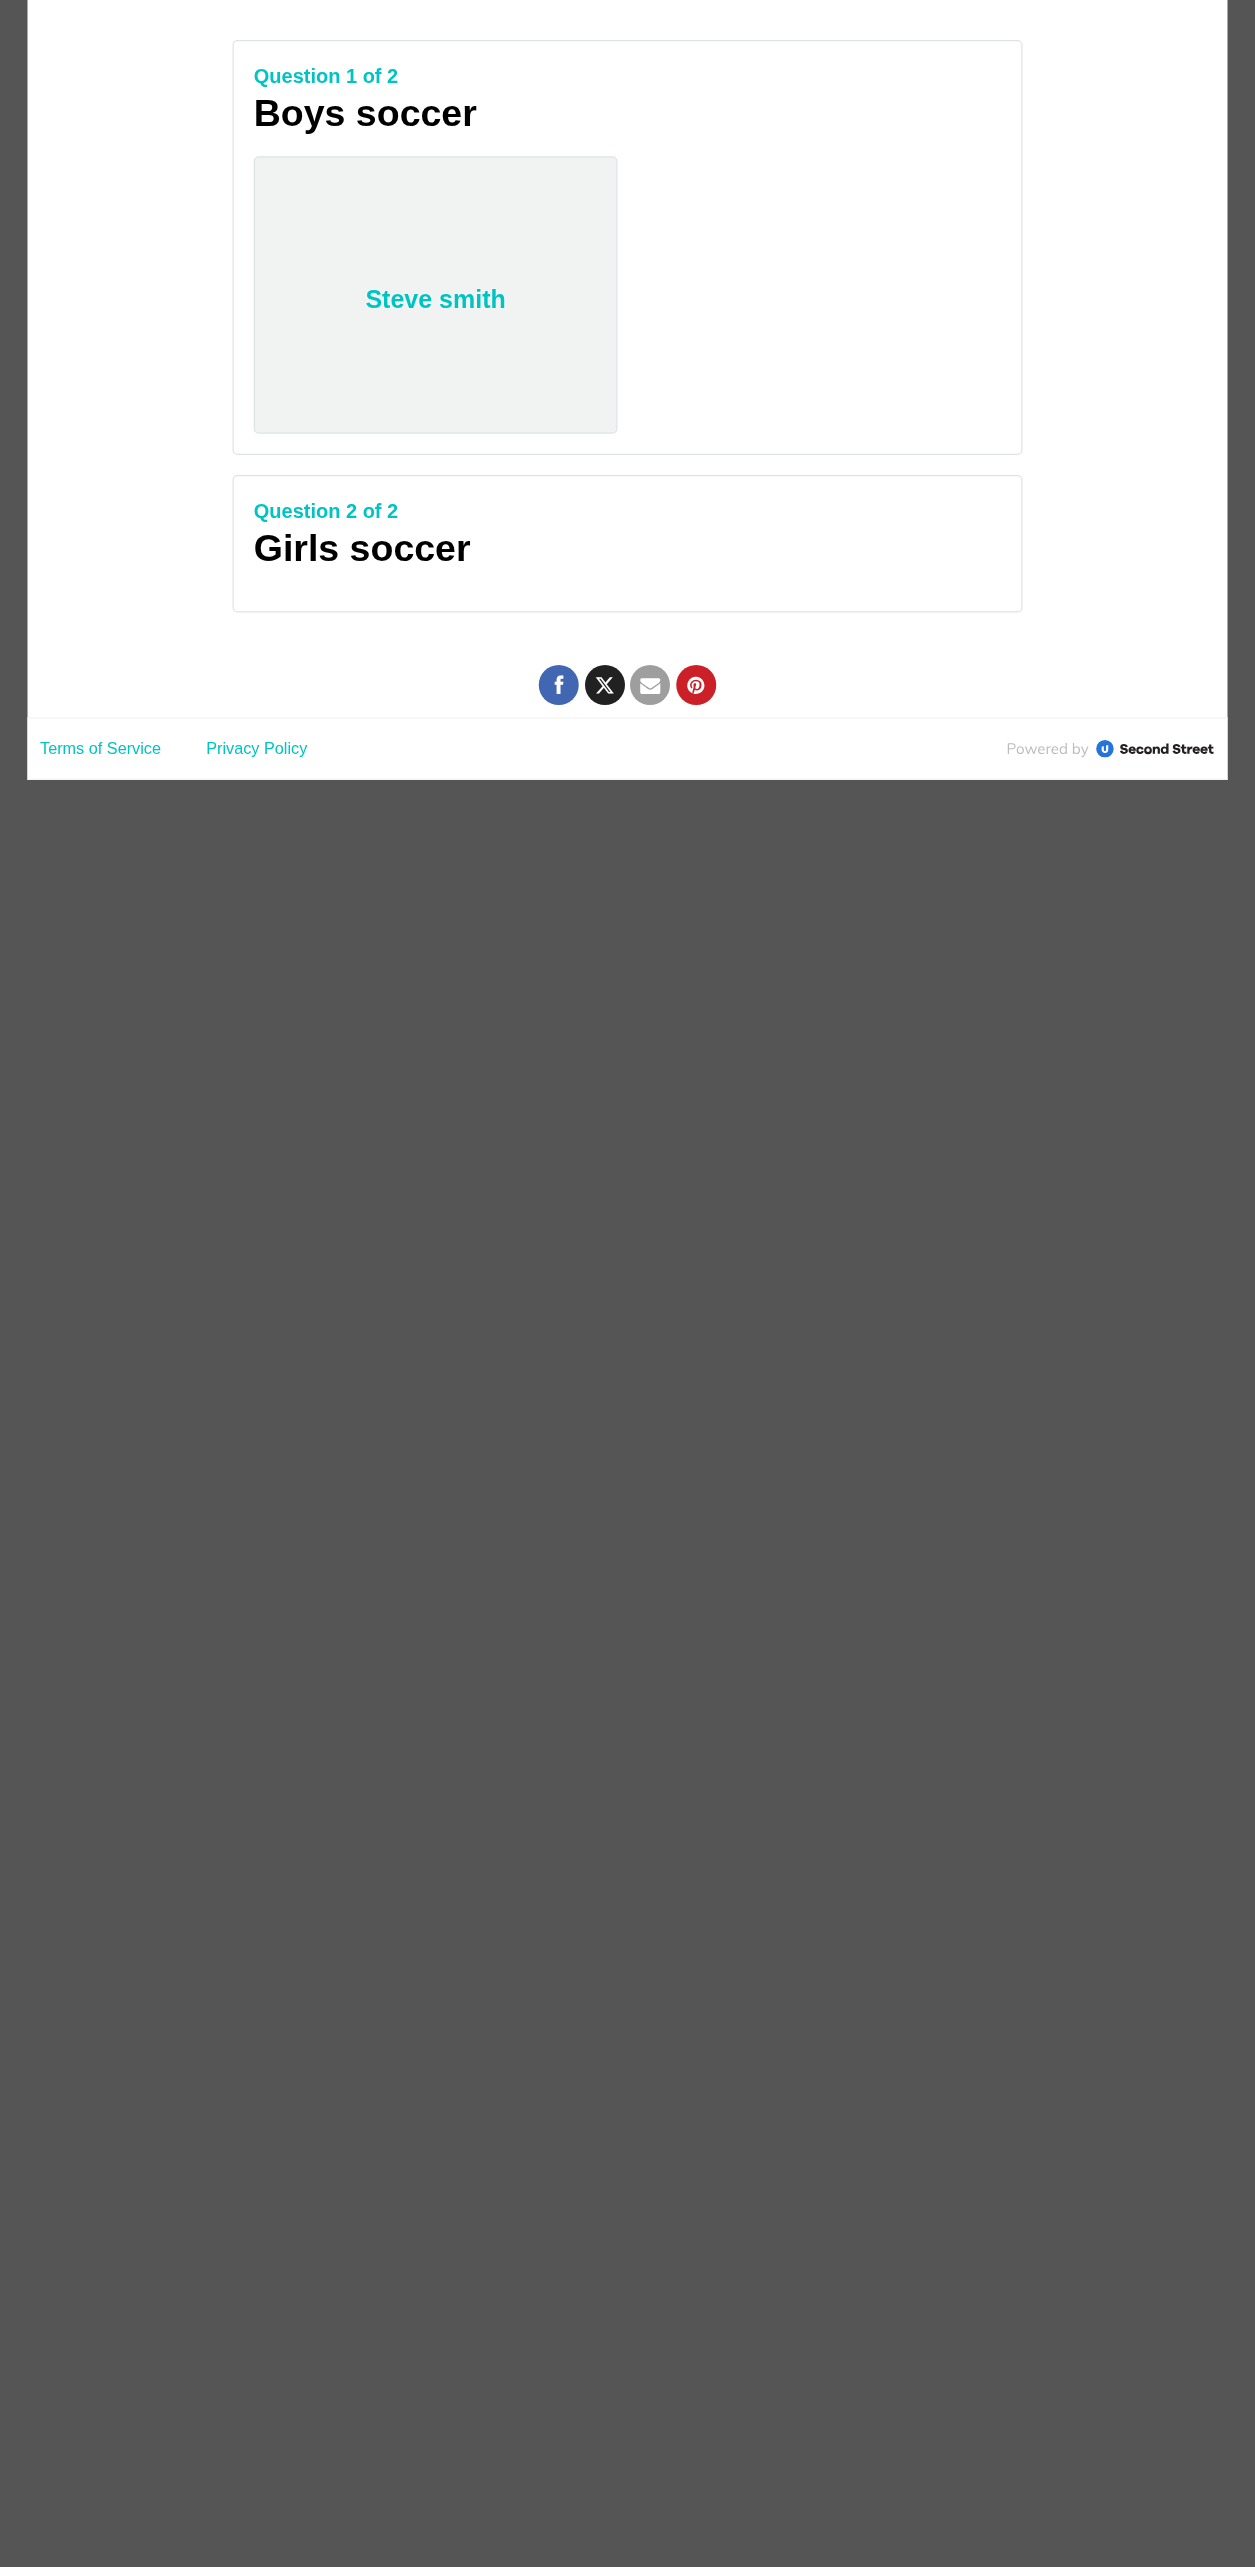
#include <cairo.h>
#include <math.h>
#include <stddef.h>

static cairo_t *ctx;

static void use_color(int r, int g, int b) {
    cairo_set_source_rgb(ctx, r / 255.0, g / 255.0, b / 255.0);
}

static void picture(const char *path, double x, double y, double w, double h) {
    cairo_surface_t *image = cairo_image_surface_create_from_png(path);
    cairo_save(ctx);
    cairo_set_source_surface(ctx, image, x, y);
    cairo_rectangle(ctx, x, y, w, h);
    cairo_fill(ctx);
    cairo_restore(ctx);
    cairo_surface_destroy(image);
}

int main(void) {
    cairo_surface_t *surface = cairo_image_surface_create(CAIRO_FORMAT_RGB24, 1255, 2567);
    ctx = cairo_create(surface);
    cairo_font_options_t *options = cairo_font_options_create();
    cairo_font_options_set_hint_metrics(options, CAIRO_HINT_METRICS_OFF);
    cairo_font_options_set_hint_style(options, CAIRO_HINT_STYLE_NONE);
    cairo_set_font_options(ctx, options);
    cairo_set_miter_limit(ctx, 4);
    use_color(85, 85, 85);
    cairo_paint(ctx);
    picture("img1.png", 27, 0, 1201, 780);
    cairo_surface_write_to_png(surface, "result.png");
    cairo_font_options_destroy(options);
    cairo_destroy(ctx);
    cairo_surface_destroy(surface);
    return 0;
}
